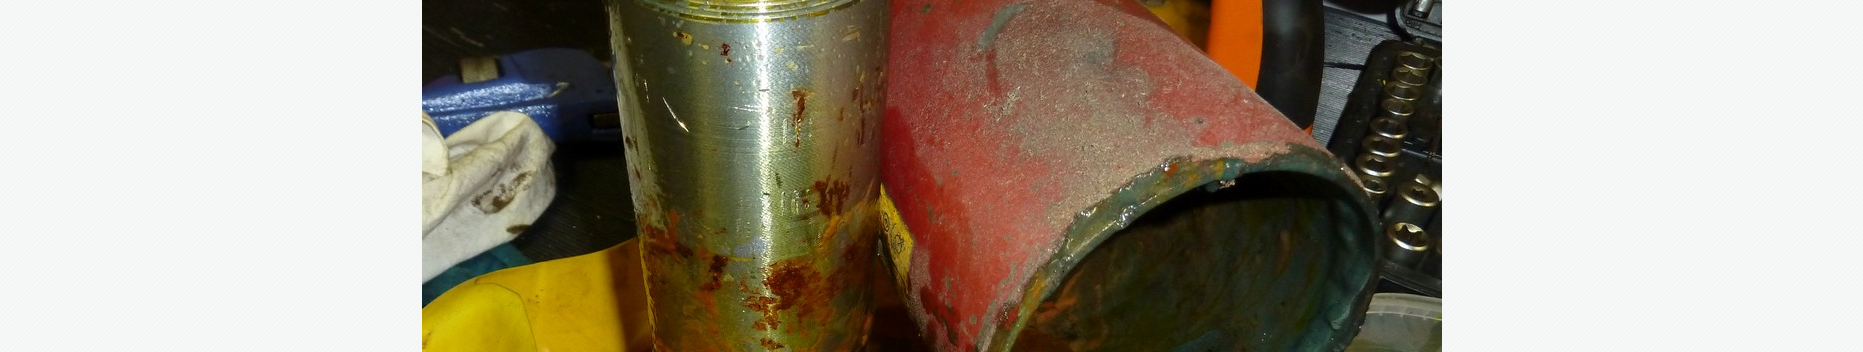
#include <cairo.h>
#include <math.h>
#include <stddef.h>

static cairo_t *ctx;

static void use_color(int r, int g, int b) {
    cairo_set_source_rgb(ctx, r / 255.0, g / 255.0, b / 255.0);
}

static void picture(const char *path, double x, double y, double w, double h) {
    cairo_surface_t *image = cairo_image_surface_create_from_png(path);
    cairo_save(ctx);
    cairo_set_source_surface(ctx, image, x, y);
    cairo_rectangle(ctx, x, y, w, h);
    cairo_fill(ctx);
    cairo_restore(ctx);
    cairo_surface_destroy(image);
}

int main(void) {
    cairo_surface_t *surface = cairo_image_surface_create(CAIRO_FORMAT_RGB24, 1863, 352);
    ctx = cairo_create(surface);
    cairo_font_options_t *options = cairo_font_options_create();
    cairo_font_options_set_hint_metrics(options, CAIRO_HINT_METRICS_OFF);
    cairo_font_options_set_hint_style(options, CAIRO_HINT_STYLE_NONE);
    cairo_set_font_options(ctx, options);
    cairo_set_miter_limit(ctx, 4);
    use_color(255, 255, 255);
    cairo_paint(ctx);
    picture("img1.png", 0, 0, 1863, 352);
    picture("img2.png", 422, 0, 1020, 352);
    cairo_surface_write_to_png(surface, "result.png");
    cairo_font_options_destroy(options);
    cairo_destroy(ctx);
    cairo_surface_destroy(surface);
    return 0;
}
